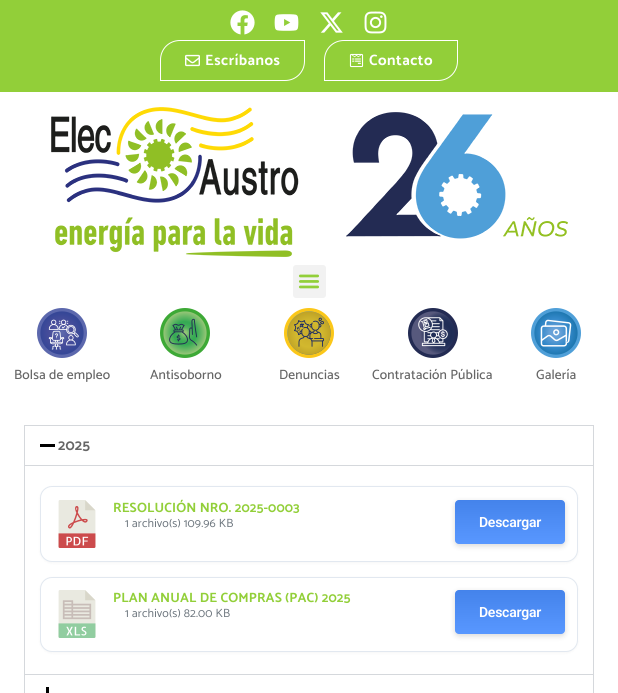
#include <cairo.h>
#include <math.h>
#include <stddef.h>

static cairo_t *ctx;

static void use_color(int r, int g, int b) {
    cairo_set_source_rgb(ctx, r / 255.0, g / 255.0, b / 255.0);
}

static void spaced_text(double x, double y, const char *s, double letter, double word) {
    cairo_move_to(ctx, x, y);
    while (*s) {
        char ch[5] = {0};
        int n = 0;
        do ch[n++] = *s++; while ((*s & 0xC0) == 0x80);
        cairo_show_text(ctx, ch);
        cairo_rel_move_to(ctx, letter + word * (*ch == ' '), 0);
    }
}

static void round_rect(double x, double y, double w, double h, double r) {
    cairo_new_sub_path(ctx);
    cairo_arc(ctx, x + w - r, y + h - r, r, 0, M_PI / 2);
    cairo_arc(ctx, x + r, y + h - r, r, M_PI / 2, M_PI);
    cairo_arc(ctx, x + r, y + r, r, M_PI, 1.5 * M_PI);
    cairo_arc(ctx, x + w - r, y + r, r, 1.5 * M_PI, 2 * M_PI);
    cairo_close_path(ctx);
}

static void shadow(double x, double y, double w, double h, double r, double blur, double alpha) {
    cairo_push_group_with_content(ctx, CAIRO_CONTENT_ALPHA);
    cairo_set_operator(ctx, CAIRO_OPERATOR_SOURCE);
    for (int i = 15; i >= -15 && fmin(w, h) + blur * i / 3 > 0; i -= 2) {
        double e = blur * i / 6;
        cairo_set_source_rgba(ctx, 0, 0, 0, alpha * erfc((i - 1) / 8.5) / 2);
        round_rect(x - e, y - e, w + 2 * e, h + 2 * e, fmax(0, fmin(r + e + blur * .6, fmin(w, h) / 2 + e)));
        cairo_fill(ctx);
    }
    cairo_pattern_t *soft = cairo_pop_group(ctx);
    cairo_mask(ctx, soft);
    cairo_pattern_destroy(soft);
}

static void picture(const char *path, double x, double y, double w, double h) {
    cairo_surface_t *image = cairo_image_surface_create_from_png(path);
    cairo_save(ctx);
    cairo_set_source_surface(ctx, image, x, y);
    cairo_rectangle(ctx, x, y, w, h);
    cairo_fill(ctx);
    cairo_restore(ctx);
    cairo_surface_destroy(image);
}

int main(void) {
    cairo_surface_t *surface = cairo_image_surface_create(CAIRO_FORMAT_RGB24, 618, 693);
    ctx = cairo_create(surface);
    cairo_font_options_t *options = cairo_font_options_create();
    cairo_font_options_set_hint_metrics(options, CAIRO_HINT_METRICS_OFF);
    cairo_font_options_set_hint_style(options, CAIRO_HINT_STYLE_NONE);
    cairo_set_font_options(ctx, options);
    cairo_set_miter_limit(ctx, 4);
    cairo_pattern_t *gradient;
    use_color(255, 255, 255);
    cairo_paint(ctx);
    use_color(146, 207, 57);
    cairo_rectangle(ctx, 0, 0, 618, 92);
    cairo_fill(ctx);
    picture("img1.png", 230, 10, 25, 25);
    picture("img2.png", 274, 14, 25, 17);
    picture("img3.png", 320, 12, 23, 21);
    picture("img4.png", 364, 11, 23, 23);
    cairo_new_path(ctx);
    cairo_move_to(ctx, 180, 40.5);
    cairo_line_to(ctx, 304.5, 40.5);
    cairo_line_to(ctx, 304.5, 61);
    cairo_curve_to(ctx, 304.5, 72, 296, 80.5, 285, 80.5);
    cairo_line_to(ctx, 160.5, 80.5);
    cairo_line_to(ctx, 160.5, 60);
    cairo_curve_to(ctx, 160.5, 49, 169, 40.5, 180, 40.5);
    cairo_close_path(ctx);
    use_color(255, 255, 255);
    cairo_set_line_width(ctx, 1);
    cairo_stroke(ctx);
    picture("img5.png", 185, 54, 15, 13);
    cairo_select_font_face(ctx, "Catamaran", CAIRO_FONT_SLANT_NORMAL, CAIRO_FONT_WEIGHT_BOLD);
    cairo_set_font_size(ctx, 15);
    spaced_text(205, 65, "Escríbanos", 0.5, 0);
    cairo_new_path(ctx);
    cairo_move_to(ctx, 344, 40.5);
    cairo_line_to(ctx, 457.5, 40.5);
    cairo_line_to(ctx, 457.5, 61);
    cairo_curve_to(ctx, 457.5, 72, 449, 80.5, 438, 80.5);
    cairo_line_to(ctx, 324.5, 80.5);
    cairo_line_to(ctx, 324.5, 60);
    cairo_curve_to(ctx, 324.5, 49, 333, 40.5, 344, 40.5);
    cairo_close_path(ctx);
    cairo_stroke(ctx);
    picture("img6.png", 349, 53, 15, 15);
    spaced_text(369, 65, "Contacto", 0.5, 0);
    picture("img7.png", 51, 107, 517, 150);
    use_color(242, 242, 242);
    round_rect(293, 265, 33, 33, 3);
    cairo_fill(ctx);
    picture("img8.png", 298, 274, 22, 15);
    picture("img9.png", 37, 308, 50, 50);
    cairo_select_font_face(ctx, "Catamaran Medium", CAIRO_FONT_SLANT_NORMAL, CAIRO_FONT_WEIGHT_NORMAL);
    cairo_set_font_size(ctx, 13.5);
    use_color(102, 102, 102);
    spaced_text(14, 379, "Bolsa de empleo", 0.15, 0);
    picture("img10.png", 160, 308, 50, 50);
    spaced_text(150, 379, "Antisoborno", 0.15, 0);
    picture("img11.png", 284, 308, 50, 50);
    spaced_text(279, 379, "Denuncias", 0.15, 0);
    picture("img12.png", 408, 308, 50, 50);
    spaced_text(372, 379, "Contratación Pública", 0.15, 0);
    picture("img13.png", 531, 308, 50, 50);
    spaced_text(536, 379, "Galería", 0.15, 0);
    cairo_rectangle(ctx, 24.5, 425.5, 569, 249);
    use_color(213, 216, 220);
    cairo_stroke(ctx);
    use_color(0, 0, 0);
    cairo_rectangle(ctx, 40, 444, 15, 3);
    cairo_fill(ctx);
    cairo_select_font_face(ctx, "Catamaran", CAIRO_FONT_SLANT_NORMAL, CAIRO_FONT_WEIGHT_BOLD);
    cairo_set_font_size(ctx, 15);
    use_color(102, 102, 102);
    spaced_text(58, 450, "2025", 0.15, 0);
    use_color(213, 216, 220);
    cairo_rectangle(ctx, 25, 465, 568, 1);
    cairo_fill(ctx);
    use_color(0, 0, 0);
    shadow(40, 487, 538, 76, 12, 1.5, 0.04);
    use_color(255, 255, 255);
    round_rect(40.5, 486.5, 537, 75, 11.5);
    cairo_fill_preserve(ctx);
    use_color(226, 232, 240);
    cairo_stroke(ctx);
    picture("img14.png", 58, 500, 38, 48);
    cairo_set_font_size(ctx, 13.5);
    use_color(146, 207, 57);
    spaced_text(113, 512, "RESOLUCIÓN NRO. 2025-0003", 0.15, 0);
    cairo_select_font_face(ctx, "Catamaran", CAIRO_FONT_SLANT_NORMAL, CAIRO_FONT_WEIGHT_NORMAL);
    cairo_set_font_size(ctx, 12);
    use_color(108, 117, 125);
    spaced_text(125, 527, "1 archivo(s) 109.96 KB", 0.15, 0);
    use_color(0, 0, 0);
    shadow(455, 502, 110, 44, 4, 3, 0.15);
    use_color(74, 142, 255);
    round_rect(455, 500, 110, 44, 4);
    cairo_fill(ctx);
    gradient = cairo_pattern_create_linear(510, 500, 510, 544);
    cairo_pattern_add_color_stop_rgba(gradient, 0, 0, 0, 0, 0.08);
    cairo_pattern_add_color_stop_rgba(gradient, 1, 1, 1, 1, 0.08);
    cairo_set_source(ctx, gradient);
    cairo_pattern_destroy(gradient);
    round_rect(455, 500, 110, 44, 4);
    cairo_fill(ctx);
    cairo_select_font_face(ctx, "Roboto SemiBold", CAIRO_FONT_SLANT_NORMAL, CAIRO_FONT_WEIGHT_NORMAL);
    cairo_set_font_size(ctx, 14);
    use_color(255, 255, 255);
    spaced_text(479, 527, "Descargar", -0.25, 0);
    use_color(0, 0, 0);
    shadow(40, 578, 538, 75, 12, 1.5, 0.04);
    use_color(255, 255, 255);
    round_rect(40.5, 577.5, 537, 74, 11.5);
    cairo_fill_preserve(ctx);
    use_color(226, 232, 240);
    cairo_stroke(ctx);
    picture("img15.png", 58, 590, 38, 48);
    cairo_select_font_face(ctx, "Catamaran", CAIRO_FONT_SLANT_NORMAL, CAIRO_FONT_WEIGHT_BOLD);
    cairo_set_font_size(ctx, 13.5);
    use_color(146, 207, 57);
    spaced_text(113, 602, "PLAN ANUAL DE COMPRAS (PAC) 2025", 0.15, 0);
    cairo_select_font_face(ctx, "Catamaran", CAIRO_FONT_SLANT_NORMAL, CAIRO_FONT_WEIGHT_NORMAL);
    cairo_set_font_size(ctx, 12);
    use_color(108, 117, 125);
    spaced_text(125, 617, "1 archivo(s) 82.00 KB", 0.15, 0);
    use_color(0, 0, 0);
    shadow(455, 592, 110, 44, 4, 3, 0.15);
    use_color(74, 142, 255);
    round_rect(455, 590, 110, 44, 4);
    cairo_fill(ctx);
    gradient = cairo_pattern_create_linear(510, 590, 510, 634);
    cairo_pattern_add_color_stop_rgba(gradient, 0, 0, 0, 0, 0.08);
    cairo_pattern_add_color_stop_rgba(gradient, 1, 1, 1, 1, 0.08);
    cairo_set_source(ctx, gradient);
    cairo_pattern_destroy(gradient);
    round_rect(455, 590, 110, 44, 4);
    cairo_fill(ctx);
    cairo_select_font_face(ctx, "Roboto SemiBold", CAIRO_FONT_SLANT_NORMAL, CAIRO_FONT_WEIGHT_NORMAL);
    cairo_set_font_size(ctx, 14);
    use_color(255, 255, 255);
    spaced_text(479, 617, "Descargar", -0.25, 0);
    use_color(213, 216, 220);
    cairo_rectangle(ctx, 593, 675, 1, 18);
    cairo_fill(ctx);
    cairo_rectangle(ctx, 24, 675, 1, 18);
    cairo_fill(ctx);
    use_color(0, 0, 0);
    cairo_rectangle(ctx, 46, 687, 3, 6);
    cairo_fill(ctx);
    cairo_surface_write_to_png(surface, "result.png");
    cairo_font_options_destroy(options);
    cairo_destroy(ctx);
    cairo_surface_destroy(surface);
    return 0;
}
